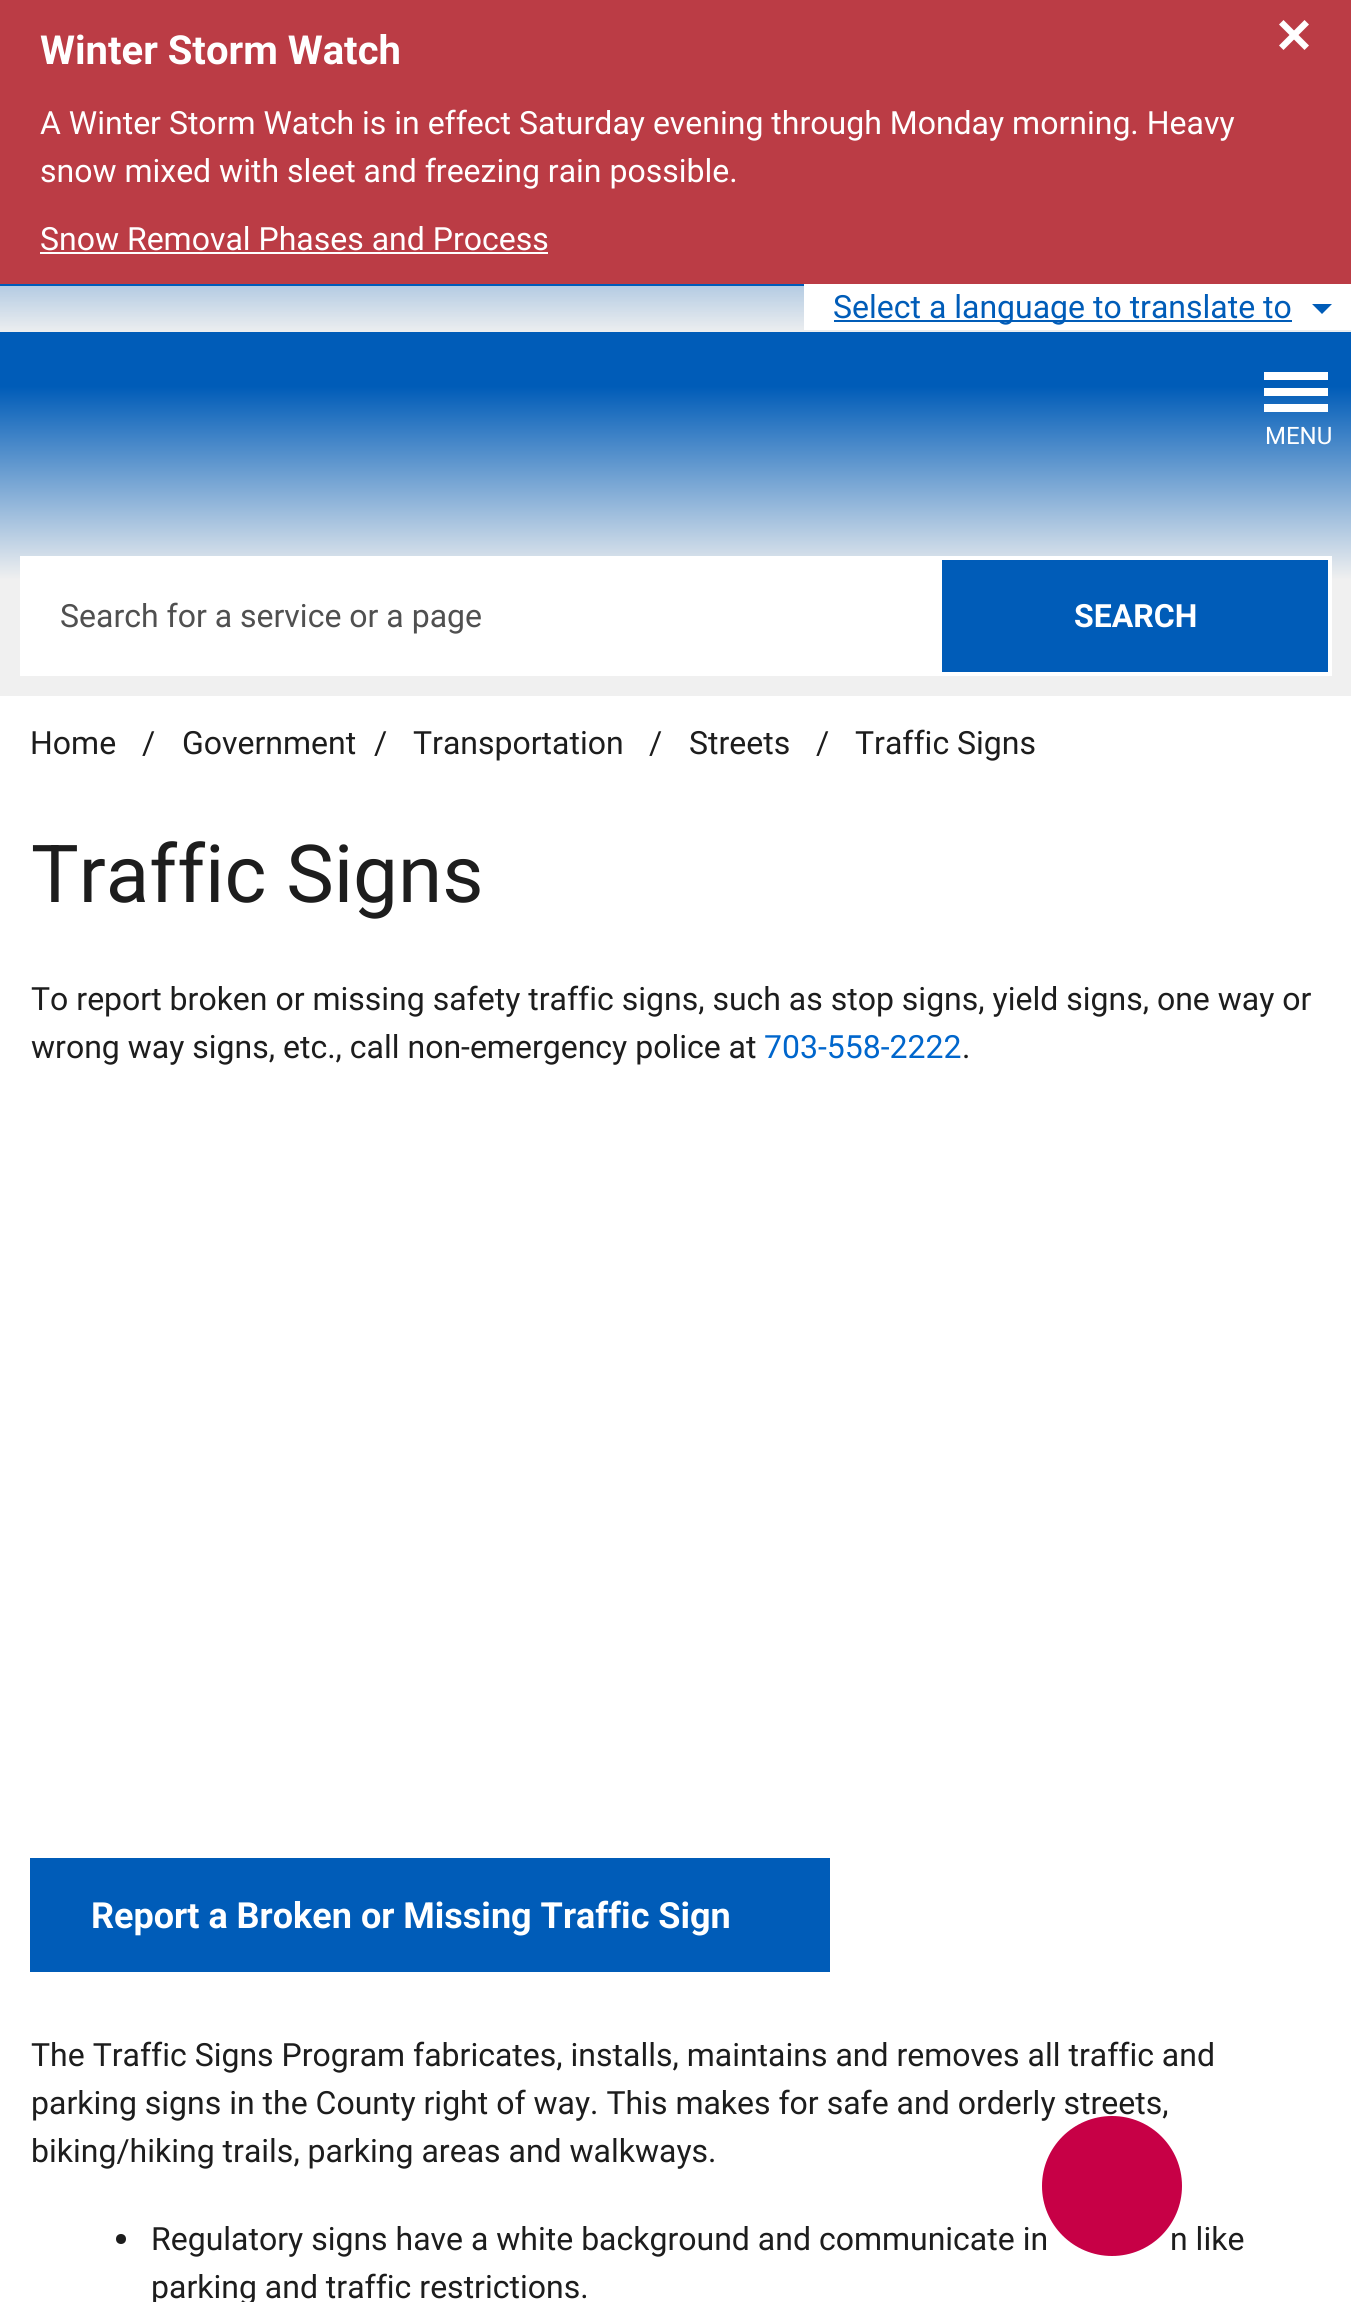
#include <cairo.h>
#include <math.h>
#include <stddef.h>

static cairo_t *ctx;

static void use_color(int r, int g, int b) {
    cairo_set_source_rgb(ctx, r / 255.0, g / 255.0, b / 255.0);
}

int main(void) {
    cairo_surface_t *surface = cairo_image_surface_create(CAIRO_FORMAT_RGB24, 1351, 2302);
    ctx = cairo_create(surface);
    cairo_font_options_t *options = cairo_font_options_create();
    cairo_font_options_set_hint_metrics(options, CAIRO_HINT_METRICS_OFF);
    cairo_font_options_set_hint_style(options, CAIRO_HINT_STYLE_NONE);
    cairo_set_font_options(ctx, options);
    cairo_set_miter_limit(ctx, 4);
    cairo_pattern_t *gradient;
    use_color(187, 60, 69);
    cairo_paint(ctx);
    cairo_select_font_face(ctx, "Roboto", CAIRO_FONT_SLANT_NORMAL, CAIRO_FONT_WEIGHT_BOLD);
    cairo_set_font_size(ctx, 40);
    use_color(255, 255, 255);
    cairo_move_to(ctx, 40, 64);
    cairo_show_text(ctx, "Winter Storm Watch");
    cairo_new_path(ctx);
    cairo_move_to(ctx, 1283.5, 20);
    cairo_line_to(ctx, 1309, 45.5);
    cairo_line_to(ctx, 1304.5, 50);
    cairo_line_to(ctx, 1279, 24.5);
    cairo_close_path(ctx);
    cairo_fill(ctx);
    cairo_new_path(ctx);
    cairo_move_to(ctx, 1279, 45.5);
    cairo_line_to(ctx, 1304.5, 20);
    cairo_line_to(ctx, 1309, 24.5);
    cairo_line_to(ctx, 1283.5, 50);
    cairo_close_path(ctx);
    cairo_fill(ctx);
    cairo_select_font_face(ctx, "Roboto", CAIRO_FONT_SLANT_NORMAL, CAIRO_FONT_WEIGHT_NORMAL);
    cairo_set_font_size(ctx, 32);
    cairo_move_to(ctx, 40, 134);
    cairo_show_text(ctx, "A Winter Storm Watch is in effect Saturday evening through Monday morning. Heavy");
    cairo_move_to(ctx, 40, 182);
    cairo_show_text(ctx, "snow mixed with sleet and freezing rain possible.");
    cairo_move_to(ctx, 40, 250);
    cairo_show_text(ctx, "Snow Removal Phases and Process");
    cairo_rectangle(ctx, 40, 252, 508, 2);
    cairo_fill(ctx);
    use_color(0, 92, 184);
    cairo_rectangle(ctx, 0, 284, 1351, 48);
    cairo_fill(ctx);
    gradient = cairo_pattern_create_linear(676, 336, 676, 136);
    cairo_pattern_add_color_stop_rgba(gradient, 0, 0.945, 0.945, 0.945, 1);
    cairo_pattern_add_color_stop_rgba(gradient, 1, 0.945, 0.945, 0.945, 0);
    cairo_set_source(ctx, gradient);
    cairo_pattern_destroy(gradient);
    cairo_rectangle(ctx, 0, 286, 1351, 46);
    cairo_fill(ctx);
    use_color(255, 255, 255);
    cairo_rectangle(ctx, 804, 284, 547, 46);
    cairo_fill(ctx);
    use_color(0, 92, 184);
    cairo_rectangle(ctx, 834, 320, 458, 2);
    cairo_fill(ctx);
    cairo_move_to(ctx, 833, 318);
    cairo_show_text(ctx, "Select a language to translate to");
    cairo_new_path(ctx);
    cairo_move_to(ctx, 1312, 304);
    cairo_line_to(ctx, 1332, 304);
    cairo_line_to(ctx, 1322, 314);
    cairo_close_path(ctx);
    cairo_fill(ctx);
    gradient = cairo_pattern_create_linear(676, 332, 676, 696);
    cairo_pattern_add_color_stop_rgba(gradient, 0.15, 0, 0.361, 0.722, 1);
    cairo_pattern_add_color_stop_rgba(gradient, 0.68, 0.941, 0.941, 0.941, 1);
    cairo_set_source(ctx, gradient);
    cairo_pattern_destroy(gradient);
    cairo_rectangle(ctx, 0, 332, 1351, 364);
    cairo_fill(ctx);
    use_color(255, 255, 255);
    cairo_rectangle(ctx, 1264, 388, 64, 8);
    cairo_fill(ctx);
    cairo_rectangle(ctx, 1264, 372, 64, 8);
    cairo_fill(ctx);
    cairo_rectangle(ctx, 1264, 404, 64, 8);
    cairo_fill(ctx);
    cairo_set_font_size(ctx, 24);
    cairo_move_to(ctx, 1265, 444);
    cairo_show_text(ctx, "MENU");
    cairo_rectangle(ctx, 20, 556, 918, 120);
    cairo_fill(ctx);
    cairo_set_font_size(ctx, 32);
    use_color(80, 80, 80);
    cairo_move_to(ctx, 60, 627);
    cairo_show_text(ctx, "Search for a service or a page");
    use_color(0, 92, 184);
    cairo_rectangle(ctx, 940, 558, 390, 116);
    cairo_fill_preserve(ctx);
    use_color(255, 255, 255);
    cairo_set_line_width(ctx, 4);
    cairo_stroke(ctx);
    cairo_select_font_face(ctx, "Roboto", CAIRO_FONT_SLANT_NORMAL, CAIRO_FONT_WEIGHT_BOLD);
    cairo_move_to(ctx, 1074, 627);
    cairo_show_text(ctx, "SEARCH");
    cairo_rectangle(ctx, 0, 696, 1351, 1606);
    cairo_fill(ctx);
    cairo_select_font_face(ctx, "Roboto", CAIRO_FONT_SLANT_NORMAL, CAIRO_FONT_WEIGHT_NORMAL);
    use_color(29, 29, 29);
    cairo_move_to(ctx, 30, 754);
    cairo_show_text(ctx, "Home");
    cairo_move_to(ctx, 142, 754);
    cairo_show_text(ctx, "/");
    cairo_move_to(ctx, 182, 754);
    cairo_show_text(ctx, "Government");
    cairo_move_to(ctx, 374, 754);
    cairo_show_text(ctx, "/");
    cairo_move_to(ctx, 413, 754);
    cairo_show_text(ctx, "Transportation");
    cairo_move_to(ctx, 649, 754);
    cairo_show_text(ctx, "/");
    cairo_move_to(ctx, 689, 754);
    cairo_show_text(ctx, "Streets");
    cairo_move_to(ctx, 816, 754);
    cairo_show_text(ctx, "/");
    cairo_move_to(ctx, 855, 754);
    cairo_show_text(ctx, "Traffic Signs");
    cairo_set_font_size(ctx, 80);
    cairo_move_to(ctx, 31, 902);
    cairo_show_text(ctx, "Traffic Signs");
    cairo_set_font_size(ctx, 32);
    cairo_move_to(ctx, 31, 1010);
    cairo_show_text(ctx, "To report broken or missing safety traffic signs, such as stop signs, yield signs, one way or");
    cairo_move_to(ctx, 31, 1058);
    cairo_show_text(ctx, "wrong way signs, etc., call non-emergency police at");
    use_color(0, 102, 204);
    cairo_move_to(ctx, 764, 1058);
    cairo_show_text(ctx, "703-558-2222");
    use_color(29, 29, 29);
    cairo_move_to(ctx, 962, 1058);
    cairo_show_text(ctx, ".");
    use_color(0, 92, 184);
    cairo_rectangle(ctx, 30, 1858, 800, 114);
    cairo_fill(ctx);
    cairo_select_font_face(ctx, "Roboto", CAIRO_FONT_SLANT_NORMAL, CAIRO_FONT_WEIGHT_BOLD);
    cairo_set_font_size(ctx, 36);
    use_color(255, 255, 255);
    cairo_move_to(ctx, 91, 1928);
    cairo_show_text(ctx, "Report a Broken or Missing Traffic Sign");
    cairo_select_font_face(ctx, "Roboto", CAIRO_FONT_SLANT_NORMAL, CAIRO_FONT_WEIGHT_NORMAL);
    cairo_set_font_size(ctx, 32);
    use_color(29, 29, 29);
    cairo_move_to(ctx, 31, 2066);
    cairo_show_text(ctx, "The Traffic Signs Program fabricates, installs, maintains and removes all traffic and");
    cairo_move_to(ctx, 31, 2114);
    cairo_show_text(ctx, "parking signs in the County right of way. This makes for safe and orderly streets,");
    cairo_move_to(ctx, 31, 2162);
    cairo_show_text(ctx, "biking/hiking trails, parking areas and walkways.");
    cairo_new_path(ctx);
    cairo_arc(ctx, 121, 2239, 5, 0, 2 * M_PI);
    cairo_fill(ctx);
    cairo_move_to(ctx, 151, 2250);
    cairo_show_text(ctx, "Regulatory signs have a white background and communicate in");
    cairo_move_to(ctx, 1170, 2250);
    cairo_show_text(ctx, "n like");
    cairo_move_to(ctx, 151, 2298);
    cairo_show_text(ctx, "parking and traffic restrictions.");
    use_color(199, 0, 70);
    cairo_new_path(ctx);
    cairo_arc(ctx, 1112, 2186, 70, 0, 2 * M_PI);
    cairo_fill(ctx);
    cairo_surface_write_to_png(surface, "result.png");
    cairo_font_options_destroy(options);
    cairo_destroy(ctx);
    cairo_surface_destroy(surface);
    return 0;
}
